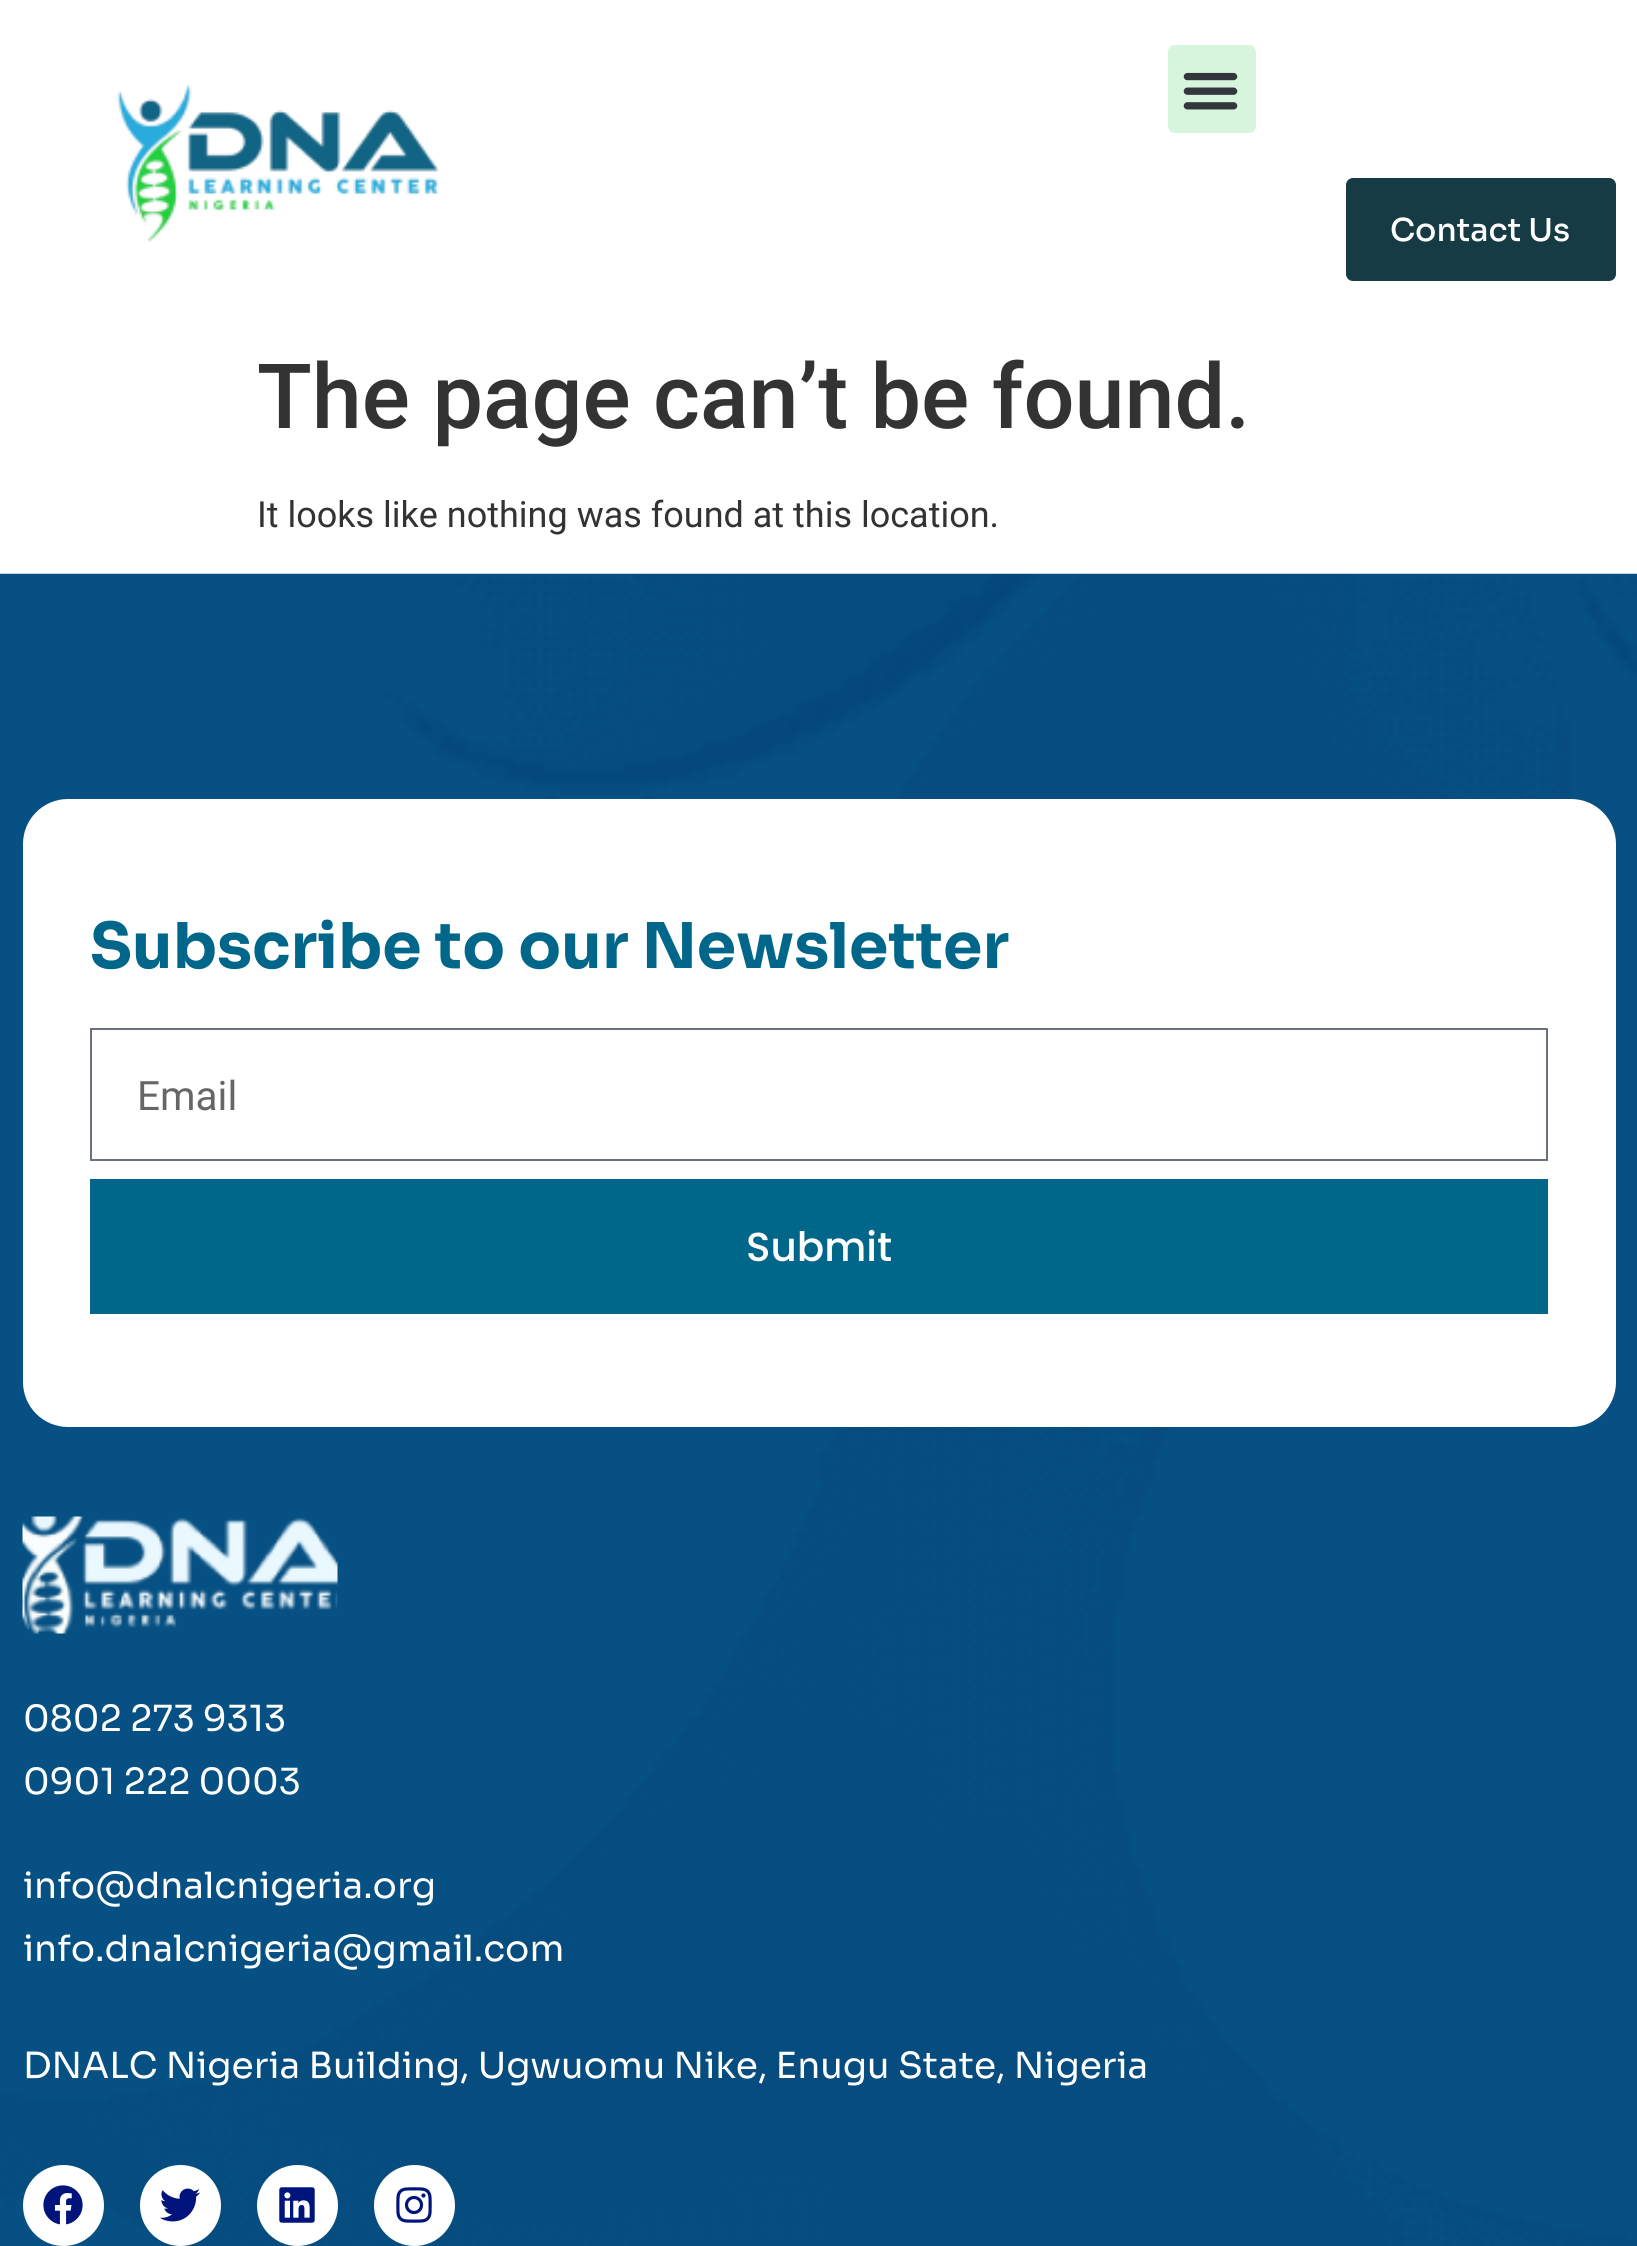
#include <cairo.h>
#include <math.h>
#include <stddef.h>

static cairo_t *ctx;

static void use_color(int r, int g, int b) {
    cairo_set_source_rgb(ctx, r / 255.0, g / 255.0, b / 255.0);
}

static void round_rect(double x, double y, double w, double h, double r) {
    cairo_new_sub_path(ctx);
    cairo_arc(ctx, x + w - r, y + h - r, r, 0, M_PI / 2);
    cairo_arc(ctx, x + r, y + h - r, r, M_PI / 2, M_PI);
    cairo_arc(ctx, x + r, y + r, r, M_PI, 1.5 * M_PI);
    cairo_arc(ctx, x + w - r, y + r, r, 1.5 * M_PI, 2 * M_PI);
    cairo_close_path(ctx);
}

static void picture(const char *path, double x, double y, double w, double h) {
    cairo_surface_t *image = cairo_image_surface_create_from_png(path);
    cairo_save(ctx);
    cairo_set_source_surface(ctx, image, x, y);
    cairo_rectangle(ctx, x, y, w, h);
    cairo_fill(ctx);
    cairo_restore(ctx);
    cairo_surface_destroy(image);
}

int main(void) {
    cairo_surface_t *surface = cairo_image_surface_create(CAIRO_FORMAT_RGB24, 1637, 2246);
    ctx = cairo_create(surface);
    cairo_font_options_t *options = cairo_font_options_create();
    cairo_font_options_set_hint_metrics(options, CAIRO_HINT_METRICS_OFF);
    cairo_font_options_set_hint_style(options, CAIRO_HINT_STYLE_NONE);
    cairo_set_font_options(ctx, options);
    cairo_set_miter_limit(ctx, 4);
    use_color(255, 255, 255);
    cairo_paint(ctx);
    picture("img1.png", 117, 85, 322, 157);
    use_color(215, 245, 220);
    round_rect(1168, 45, 88, 88, 7);
    cairo_fill(ctx);
    picture("img2.png", 1183, 72, 55, 38);
    use_color(22, 59, 68);
    round_rect(1346, 178, 270, 103, 7);
    cairo_fill(ctx);
    cairo_select_font_face(ctx, "Sora Medium", CAIRO_FONT_SLANT_NORMAL, CAIRO_FONT_WEIGHT_NORMAL);
    cairo_set_font_size(ctx, 31.5);
    use_color(255, 255, 255);
    cairo_move_to(ctx, 1390, 241);
    cairo_show_text(ctx, "Contact Us");
    cairo_select_font_face(ctx, "Roboto Medium", CAIRO_FONT_SLANT_NORMAL, CAIRO_FONT_WEIGHT_NORMAL);
    cairo_set_font_size(ctx, 90);
    use_color(51, 51, 51);
    cairo_move_to(ctx, 257, 428);
    cairo_show_text(ctx, "The page can’t be found.");
    cairo_select_font_face(ctx, "Roboto", CAIRO_FONT_SLANT_NORMAL, CAIRO_FONT_WEIGHT_NORMAL);
    cairo_set_font_size(ctx, 36);
    cairo_move_to(ctx, 257, 527);
    cairo_show_text(ctx, "It looks like nothing was found at this location.");
    picture("img3.png", 0, 573, 1637, 1673);
    use_color(255, 255, 255);
    round_rect(23, 799, 1593, 628, 45);
    cairo_fill(ctx);
    cairo_select_font_face(ctx, "Sora", CAIRO_FONT_SLANT_NORMAL, CAIRO_FONT_WEIGHT_BOLD);
    cairo_set_font_size(ctx, 63);
    use_color(0, 102, 138);
    cairo_move_to(ctx, 90, 968);
    cairo_show_text(ctx, "Subscribe to our Newsletter");
    cairo_rectangle(ctx, 91, 1029, 1456, 131);
    use_color(105, 114, 125);
    cairo_stroke(ctx);
    cairo_select_font_face(ctx, "Roboto", CAIRO_FONT_SLANT_NORMAL, CAIRO_FONT_WEIGHT_NORMAL);
    cairo_set_font_size(ctx, 40.5);
    use_color(102, 102, 102);
    cairo_move_to(ctx, 137, 1110);
    cairo_show_text(ctx, "Email");
    use_color(0, 102, 138);
    cairo_rectangle(ctx, 90, 1179, 1458, 135);
    cairo_fill(ctx);
    cairo_select_font_face(ctx, "Poppins Medium", CAIRO_FONT_SLANT_NORMAL, CAIRO_FONT_WEIGHT_NORMAL);
    use_color(255, 255, 255);
    cairo_move_to(ctx, 746, 1261);
    cairo_show_text(ctx, "Submit");
    picture("img4.png", 22, 1516, 316, 118);
    cairo_select_font_face(ctx, "Sora", CAIRO_FONT_SLANT_NORMAL, CAIRO_FONT_WEIGHT_NORMAL);
    cairo_set_font_size(ctx, 36);
    cairo_move_to(ctx, 23, 1731);
    cairo_show_text(ctx, "0802 273 9313");
    cairo_move_to(ctx, 23, 1794);
    cairo_show_text(ctx, "0901 222 0003");
    cairo_move_to(ctx, 23, 1898);
    cairo_show_text(ctx, "info@dnalcnigeria.org");
    cairo_move_to(ctx, 23, 1961);
    cairo_show_text(ctx, "info.dnalcnigeria@gmail.com");
    cairo_move_to(ctx, 23, 2078);
    cairo_show_text(ctx, "DNALC Nigeria Building, Ugwuomu Nike, Enugu State, Nigeria");
    cairo_new_path(ctx);
    cairo_arc(ctx, 63.5, 2205.5, 40.5, 0, 2 * M_PI);
    cairo_fill(ctx);
    picture("img5.png", 43, 2185, 40, 40);
    cairo_arc(ctx, 180.5, 2205.5, 40.5, 0, 2 * M_PI);
    cairo_fill(ctx);
    picture("img6.png", 160, 2188, 40, 34);
    cairo_arc(ctx, 297.5, 2205.5, 40.5, 0, 2 * M_PI);
    cairo_fill(ctx);
    picture("img7.png", 279, 2187, 36, 36);
    cairo_arc(ctx, 414.5, 2205.5, 40.5, 0, 2 * M_PI);
    cairo_fill(ctx);
    picture("img8.png", 396, 2187, 36, 36);
    cairo_surface_write_to_png(surface, "result.png");
    cairo_font_options_destroy(options);
    cairo_destroy(ctx);
    cairo_surface_destroy(surface);
    return 0;
}
